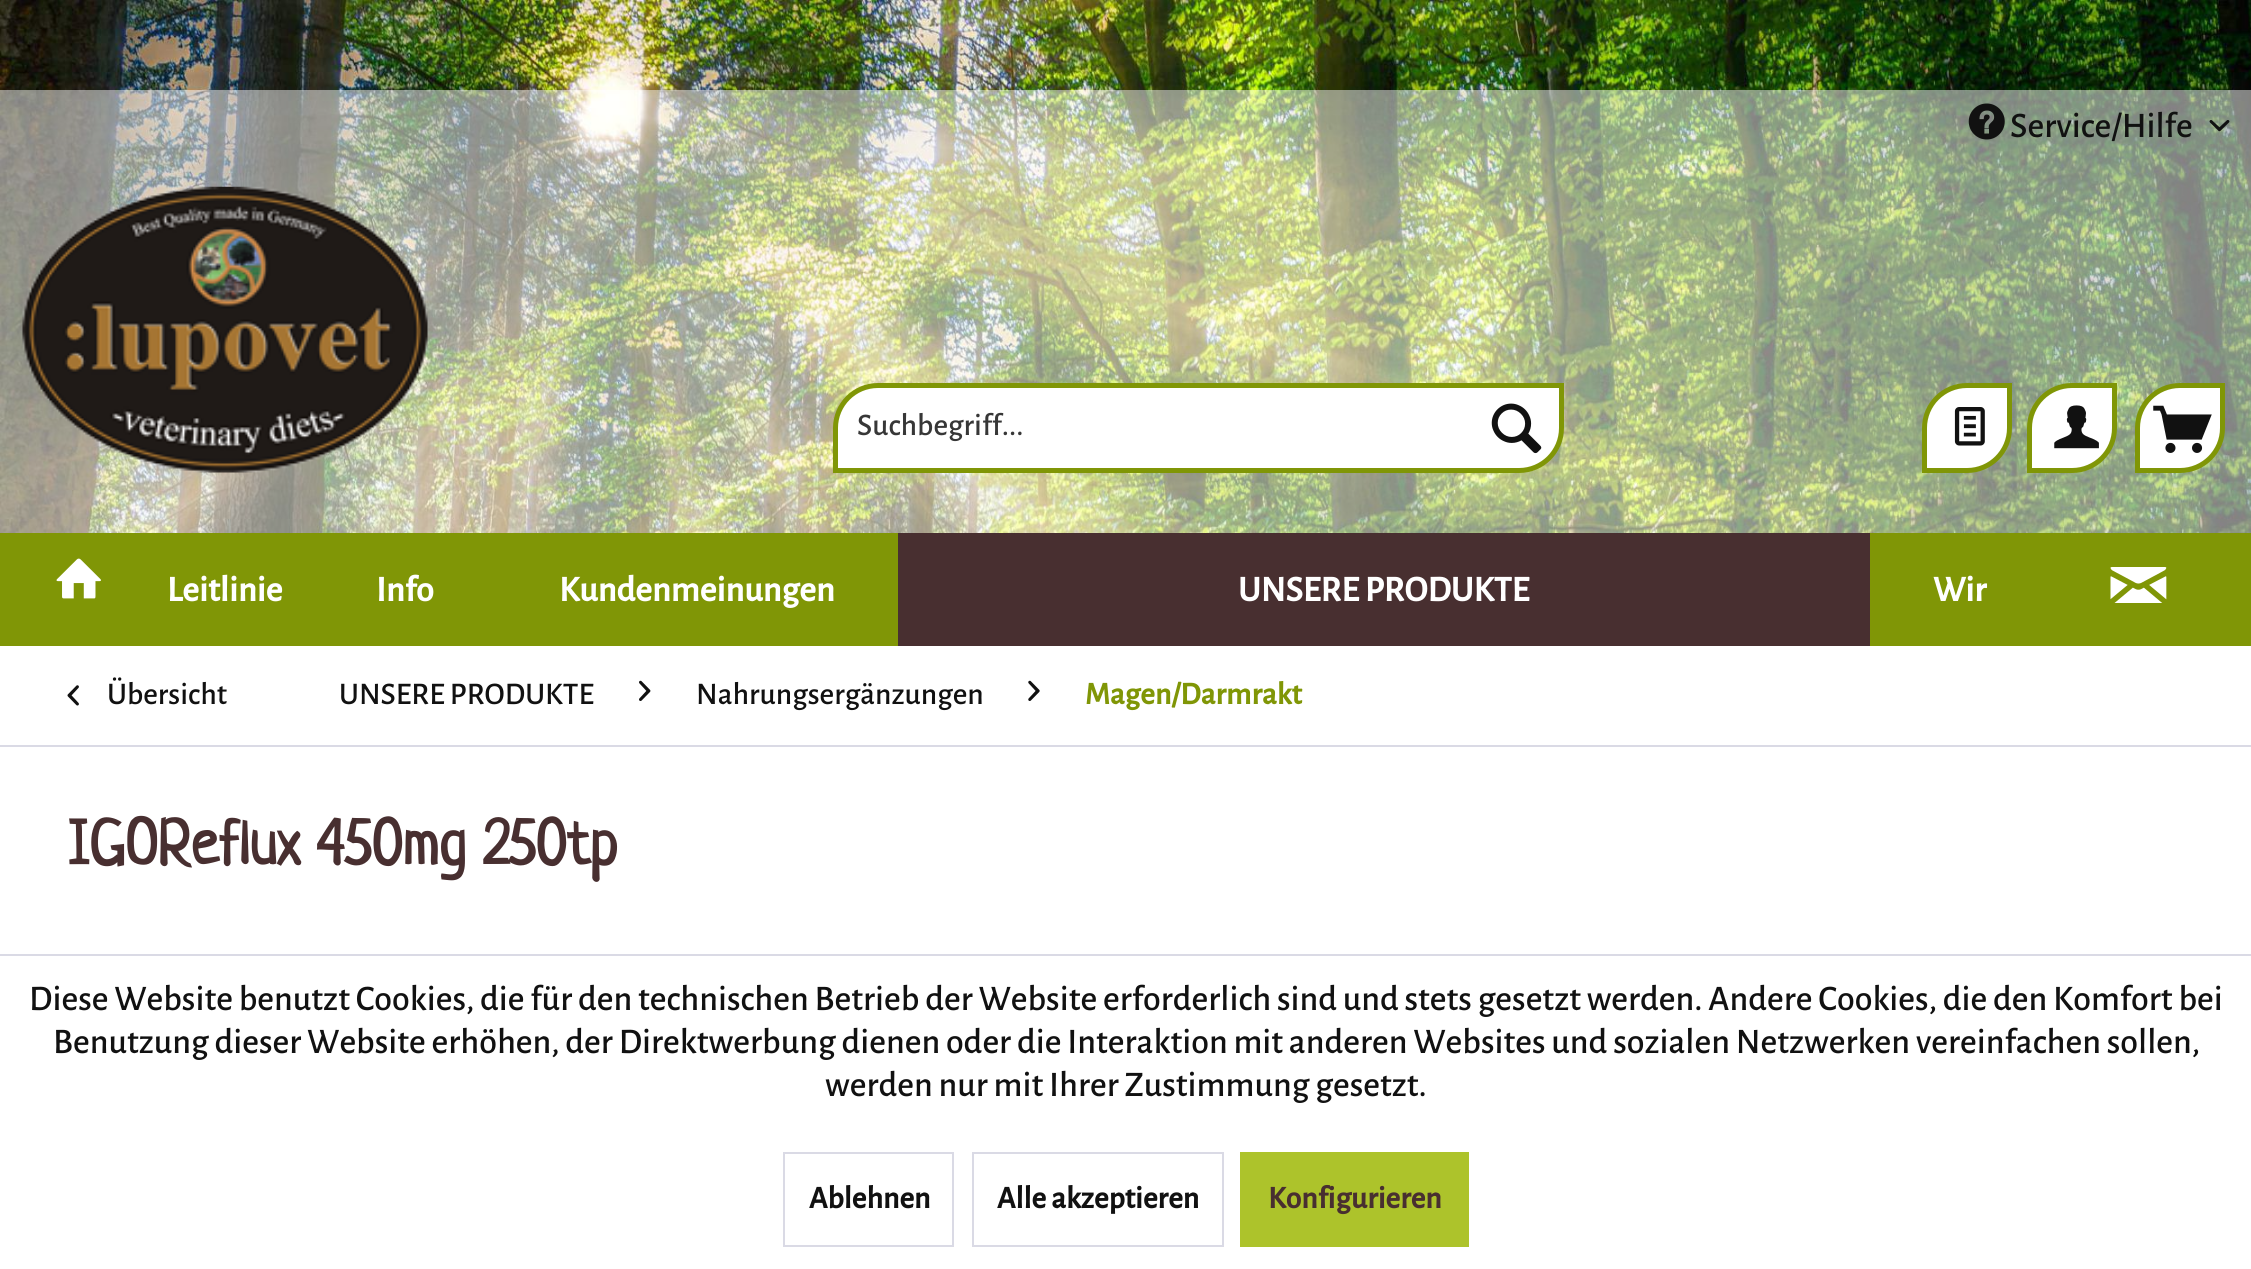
#include <cairo.h>
#include <math.h>
#include <stddef.h>

static cairo_t *ctx;

static void use_color(int r, int g, int b) {
    cairo_set_source_rgb(ctx, r / 255.0, g / 255.0, b / 255.0);
}

static void picture(const char *path, double x, double y, double w, double h) {
    cairo_surface_t *image = cairo_image_surface_create_from_png(path);
    cairo_save(ctx);
    cairo_set_source_surface(ctx, image, x, y);
    cairo_rectangle(ctx, x, y, w, h);
    cairo_fill(ctx);
    cairo_restore(ctx);
    cairo_surface_destroy(image);
}

int main(void) {
    cairo_surface_t *surface = cairo_image_surface_create(CAIRO_FORMAT_RGB24, 2251, 1269);
    ctx = cairo_create(surface);
    cairo_font_options_t *options = cairo_font_options_create();
    cairo_font_options_set_hint_metrics(options, CAIRO_HINT_METRICS_OFF);
    cairo_font_options_set_hint_style(options, CAIRO_HINT_STYLE_NONE);
    cairo_set_font_options(ctx, options);
    cairo_set_miter_limit(ctx, 4);
    use_color(255, 255, 255);
    cairo_paint(ctx);
    picture("img1.png", 0, 0, 2251, 533);
    cairo_set_source_rgba(ctx, 1, 1, 1, 0.5);
    cairo_rectangle(ctx, 0, 90, 2251, 443);
    cairo_fill(ctx);
    picture("img2.png", 1968, 103, 37, 37);
    cairo_select_font_face(ctx, "Alegreya Sans Medium", CAIRO_FONT_SLANT_NORMAL, CAIRO_FONT_WEIGHT_NORMAL);
    cairo_set_font_size(ctx, 36);
    use_color(17, 17, 17);
    cairo_move_to(ctx, 2010, 137);
    cairo_show_text(ctx, "Service/Hilfe");
    picture("img3.png", 2209, 120, 21, 12);
    picture("img4.png", 22, 186, 406, 287);
    use_color(255, 255, 255);
    cairo_new_path(ctx);
    cairo_move_to(ctx, 878, 385.5);
    cairo_line_to(ctx, 1561.5, 385.5);
    cairo_line_to(ctx, 1561.5, 428);
    cairo_curve_to(ctx, 1561.5, 451.5, 1542.5, 470.5, 1519, 470.5);
    cairo_line_to(ctx, 835.5, 470.5);
    cairo_line_to(ctx, 835.5, 428);
    cairo_curve_to(ctx, 835.5, 404.5, 854.5, 385.5, 878, 385.5);
    cairo_close_path(ctx);
    cairo_fill_preserve(ctx);
    use_color(128, 150, 6);
    cairo_set_line_width(ctx, 5);
    cairo_stroke(ctx);
    cairo_set_font_size(ctx, 31.5);
    use_color(55, 55, 55);
    cairo_move_to(ctx, 857, 435);
    cairo_show_text(ctx, "Suchbegriff...");
    picture("img5.png", 1491, 403, 51, 51);
    use_color(255, 255, 255);
    cairo_new_path(ctx);
    cairo_move_to(ctx, 1967, 385.5);
    cairo_line_to(ctx, 2009.5, 385.5);
    cairo_line_to(ctx, 2009.5, 428);
    cairo_curve_to(ctx, 2009.5, 451.5, 1990.5, 470.5, 1967, 470.5);
    cairo_line_to(ctx, 1924.5, 470.5);
    cairo_line_to(ctx, 1924.5, 428);
    cairo_curve_to(ctx, 1924.5, 404.5, 1943.5, 385.5, 1967, 385.5);
    cairo_close_path(ctx);
    cairo_fill_preserve(ctx);
    use_color(128, 150, 6);
    cairo_stroke(ctx);
    picture("img6.png", 1954, 407, 31, 39);
    use_color(255, 255, 255);
    cairo_new_path(ctx);
    cairo_move_to(ctx, 2072, 385.5);
    cairo_line_to(ctx, 2114.5, 385.5);
    cairo_line_to(ctx, 2114.5, 428);
    cairo_curve_to(ctx, 2114.5, 451.5, 2095.5, 470.5, 2072, 470.5);
    cairo_line_to(ctx, 2029.5, 470.5);
    cairo_line_to(ctx, 2029.5, 428);
    cairo_curve_to(ctx, 2029.5, 404.5, 2048.5, 385.5, 2072, 385.5);
    cairo_close_path(ctx);
    cairo_fill_preserve(ctx);
    use_color(128, 150, 6);
    cairo_stroke(ctx);
    picture("img7.png", 2054, 405, 45, 44);
    use_color(255, 255, 255);
    cairo_new_path(ctx);
    cairo_move_to(ctx, 2180, 385.5);
    cairo_line_to(ctx, 2222.5, 385.5);
    cairo_line_to(ctx, 2222.5, 428);
    cairo_curve_to(ctx, 2222.5, 451.5, 2203.5, 470.5, 2180, 470.5);
    cairo_line_to(ctx, 2137.5, 470.5);
    cairo_line_to(ctx, 2137.5, 428);
    cairo_curve_to(ctx, 2137.5, 404.5, 2156.5, 385.5, 2180, 385.5);
    cairo_close_path(ctx);
    cairo_fill_preserve(ctx);
    use_color(128, 150, 6);
    cairo_stroke(ctx);
    picture("img8.png", 2153, 405, 59, 48);
    cairo_rectangle(ctx, 0, 533, 2251, 113);
    cairo_fill(ctx);
    picture("img9.png", 56, 558, 45, 41);
    cairo_select_font_face(ctx, "Alegreya Sans", CAIRO_FONT_SLANT_NORMAL, CAIRO_FONT_WEIGHT_BOLD);
    cairo_set_font_size(ctx, 36);
    use_color(255, 255, 255);
    cairo_move_to(ctx, 167, 601);
    cairo_show_text(ctx, "Leitlinie");
    cairo_move_to(ctx, 376, 601);
    cairo_show_text(ctx, "Info");
    cairo_move_to(ctx, 559, 601);
    cairo_show_text(ctx, "Kundenmeinungen");
    use_color(72, 47, 48);
    cairo_rectangle(ctx, 898, 533, 972, 113);
    cairo_fill(ctx);
    use_color(255, 255, 255);
    cairo_move_to(ctx, 1238, 601);
    cairo_show_text(ctx, "UNSERE PRODUKTE");
    cairo_move_to(ctx, 1933, 601);
    cairo_show_text(ctx, "Wir");
    picture("img10.png", 2110, 567, 57, 36);
    use_color(218, 218, 229);
    cairo_rectangle(ctx, 0, 745, 2251, 2);
    cairo_fill(ctx);
    picture("img11.png", 67, 685, 12, 21);
    cairo_select_font_face(ctx, "Alegreya Sans Medium", CAIRO_FONT_SLANT_NORMAL, CAIRO_FONT_WEIGHT_NORMAL);
    cairo_set_font_size(ctx, 31.5);
    use_color(17, 17, 17);
    cairo_move_to(ctx, 107, 704);
    cairo_show_text(ctx, "Übersicht");
    cairo_move_to(ctx, 339, 704);
    cairo_show_text(ctx, "UNSERE PRODUKTE");
    picture("img12.png", 639, 680, 12, 21);
    cairo_move_to(ctx, 696, 704);
    cairo_show_text(ctx, "Nahrungsergänzungen");
    picture("img13.png", 1028, 680, 12, 21);
    cairo_select_font_face(ctx, "Alegreya Sans", CAIRO_FONT_SLANT_NORMAL, CAIRO_FONT_WEIGHT_BOLD);
    use_color(128, 150, 6);
    cairo_move_to(ctx, 1085, 704);
    cairo_show_text(ctx, "Magen/Darmrakt");
    cairo_select_font_face(ctx, "Neucha", CAIRO_FONT_SLANT_NORMAL, CAIRO_FONT_WEIGHT_BOLD);
    cairo_set_font_size(ctx, 63);
    use_color(72, 47, 48);
    cairo_move_to(ctx, 68, 864);
    cairo_show_text(ctx, "IGOReflux 450mg 250tp");
    use_color(218, 218, 229);
    cairo_rectangle(ctx, 0, 954, 2251, 2);
    cairo_fill(ctx);
    cairo_select_font_face(ctx, "Alegreya Sans Medium", CAIRO_FONT_SLANT_NORMAL, CAIRO_FONT_WEIGHT_NORMAL);
    cairo_set_font_size(ctx, 36);
    use_color(17, 17, 17);
    cairo_move_to(ctx, 29, 1010);
    cairo_show_text(ctx, "Diese Website benutzt Cookies, die für den technischen Betrieb der Website erforderlich sind und stets gesetzt werden. Andere Cookies, die den Komfort bei");
    cairo_move_to(ctx, 53, 1053);
    cairo_show_text(ctx, "Benutzung dieser Website erhöhen, der Direktwerbung dienen oder die Interaktion mit anderen Websites und sozialen Netzwerken vereinfachen sollen,");
    cairo_move_to(ctx, 825, 1096);
    cairo_show_text(ctx, "werden nur mit Ihrer Zustimmung gesetzt.");
    cairo_rectangle(ctx, 784, 1153, 169, 93);
    use_color(218, 218, 229);
    cairo_set_line_width(ctx, 2);
    cairo_stroke(ctx);
    cairo_select_font_face(ctx, "Alegreya Sans", CAIRO_FONT_SLANT_NORMAL, CAIRO_FONT_WEIGHT_BOLD);
    cairo_set_font_size(ctx, 31.5);
    use_color(17, 17, 17);
    cairo_move_to(ctx, 809, 1208);
    cairo_show_text(ctx, "Ablehnen");
    cairo_rectangle(ctx, 973, 1153, 250, 93);
    use_color(218, 218, 229);
    cairo_stroke(ctx);
    use_color(17, 17, 17);
    cairo_move_to(ctx, 997, 1208);
    cairo_show_text(ctx, "Alle akzeptieren");
    use_color(173, 195, 43);
    cairo_rectangle(ctx, 1240, 1152, 229, 95);
    cairo_fill(ctx);
    use_color(72, 47, 48);
    cairo_move_to(ctx, 1268, 1208);
    cairo_show_text(ctx, "Konfigurieren");
    cairo_surface_write_to_png(surface, "result.png");
    cairo_font_options_destroy(options);
    cairo_destroy(ctx);
    cairo_surface_destroy(surface);
    return 0;
}
